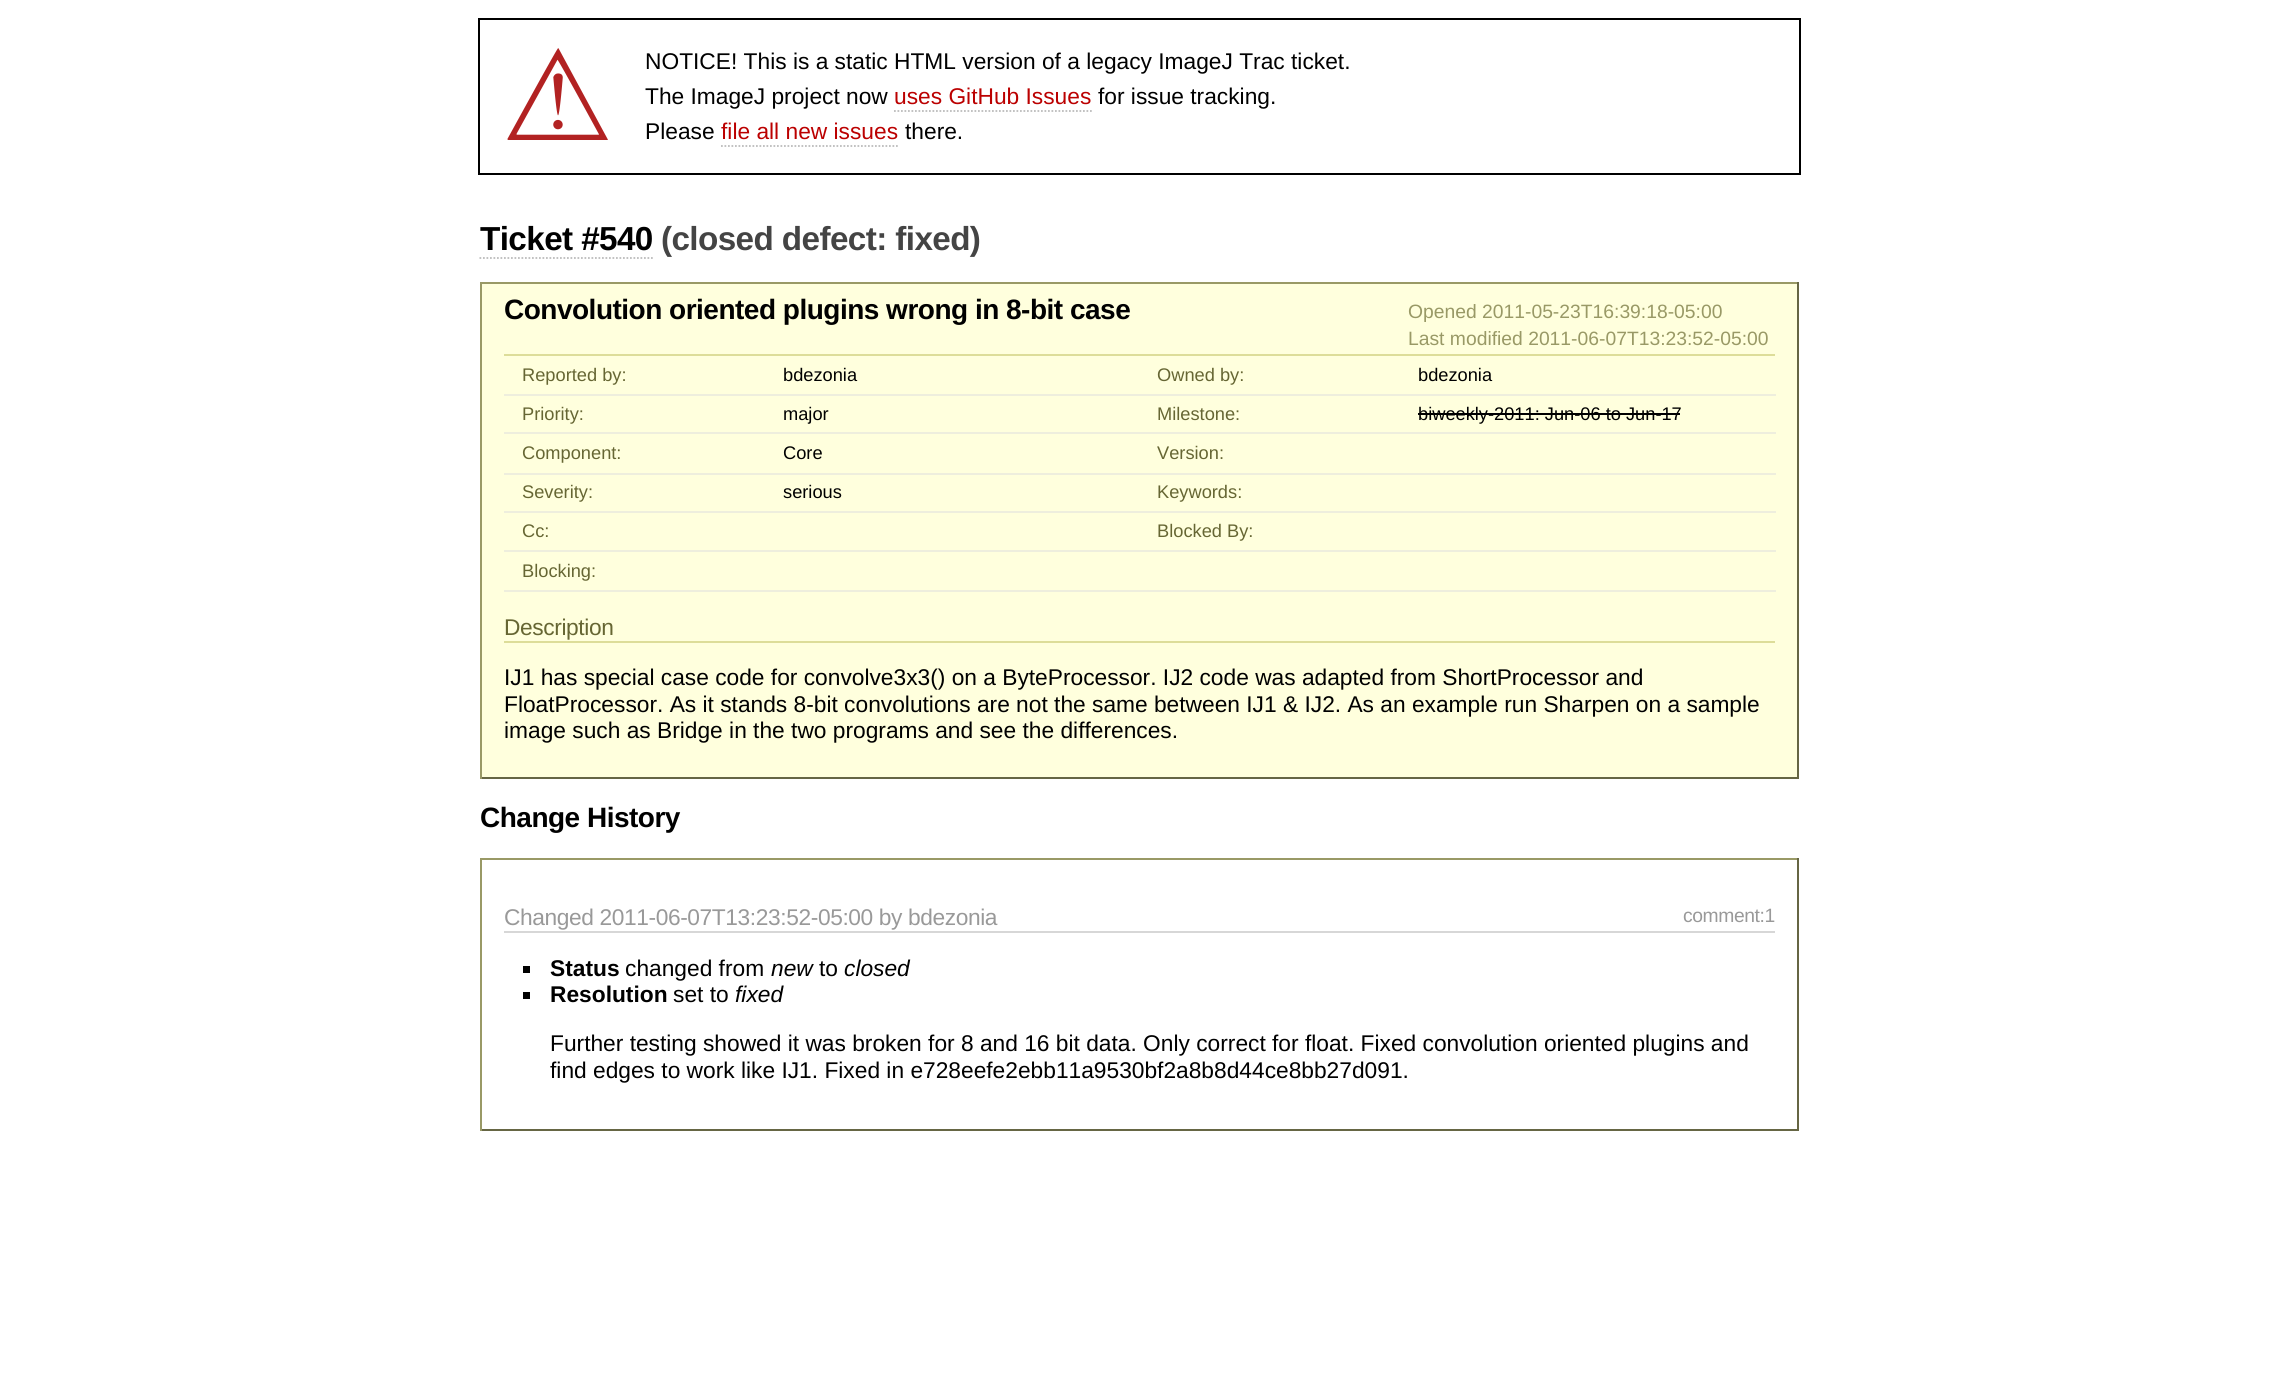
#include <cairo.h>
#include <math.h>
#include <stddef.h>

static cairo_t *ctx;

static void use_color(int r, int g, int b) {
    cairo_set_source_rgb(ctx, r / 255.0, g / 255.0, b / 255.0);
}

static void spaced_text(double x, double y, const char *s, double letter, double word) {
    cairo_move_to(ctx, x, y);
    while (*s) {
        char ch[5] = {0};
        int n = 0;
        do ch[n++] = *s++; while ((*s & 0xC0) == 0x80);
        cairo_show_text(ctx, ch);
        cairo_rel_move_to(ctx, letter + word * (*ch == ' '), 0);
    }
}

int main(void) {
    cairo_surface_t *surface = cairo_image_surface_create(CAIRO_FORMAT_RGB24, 2277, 1386);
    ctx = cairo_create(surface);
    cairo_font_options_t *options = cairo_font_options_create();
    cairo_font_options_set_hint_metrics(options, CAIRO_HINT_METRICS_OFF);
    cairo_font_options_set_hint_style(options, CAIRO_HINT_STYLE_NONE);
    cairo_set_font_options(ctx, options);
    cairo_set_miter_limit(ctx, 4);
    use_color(255, 255, 255);
    cairo_paint(ctx);
    cairo_rectangle(ctx, 479, 19, 1321, 155);
    use_color(0, 0, 0);
    cairo_stroke(ctx);
    cairo_select_font_face(ctx, "DejaVu Sans", CAIRO_FONT_SLANT_NORMAL, CAIRO_FONT_WEIGHT_NORMAL);
    cairo_set_font_size(ctx, 126);
    use_color(178, 34, 34);
    cairo_move_to(ctx, 501, 140);
    cairo_show_text(ctx, "⚠");
    cairo_select_font_face(ctx, "Liberation Sans", CAIRO_FONT_SLANT_NORMAL, CAIRO_FONT_WEIGHT_NORMAL);
    cairo_set_font_size(ctx, 22.75);
    use_color(0, 0, 0);
    cairo_move_to(ctx, 645, 69);
    cairo_show_text(ctx, "NOTICE! This is a static HTML version of a legacy ImageJ Trac ticket.");
    cairo_move_to(ctx, 645, 104);
    cairo_show_text(ctx, "The ImageJ project now");
    use_color(187, 0, 0);
    cairo_move_to(ctx, 894, 104);
    cairo_show_text(ctx, "uses GitHub Issues");
    cairo_new_path(ctx);
    cairo_move_to(ctx, 894, 111);
    cairo_line_to(ctx, 1092, 111);
    use_color(187, 187, 187);
    cairo_set_line_width(ctx, 1.8);
    cairo_set_dash(ctx, (double[]){1.75, 1.75}, 2, 0);
    cairo_stroke(ctx);
    use_color(0, 0, 0);
    cairo_move_to(ctx, 1098, 104);
    cairo_show_text(ctx, "for issue tracking.");
    cairo_move_to(ctx, 645, 139);
    cairo_show_text(ctx, "Please");
    use_color(187, 0, 0);
    cairo_move_to(ctx, 721, 139);
    cairo_show_text(ctx, "file all new issues");
    cairo_new_path(ctx);
    cairo_move_to(ctx, 721, 146);
    cairo_line_to(ctx, 898, 146);
    use_color(187, 187, 187);
    cairo_stroke(ctx);
    use_color(0, 0, 0);
    cairo_move_to(ctx, 905, 139);
    cairo_show_text(ctx, "there.");
    cairo_select_font_face(ctx, "Liberation Sans", CAIRO_FONT_SLANT_NORMAL, CAIRO_FONT_WEIGHT_BOLD);
    cairo_set_font_size(ctx, 33.25);
    spaced_text(480, 250, "Ticket #540", -0.6, 0);
    cairo_new_path(ctx);
    cairo_move_to(ctx, 479.5, 258);
    cairo_line_to(ctx, 653, 258);
    use_color(187, 187, 187);
    cairo_stroke(ctx);
    use_color(68, 68, 68);
    spaced_text(661, 250, "(closed defect: fixed)", -0.6, 0);
    use_color(255, 255, 221);
    cairo_rectangle(ctx, 482, 284, 1315, 493);
    cairo_fill(ctx);
    use_color(153, 153, 102);
    cairo_rectangle(ctx, 480, 282, 1319, 2);
    cairo_fill(ctx);
    use_color(102, 102, 68);
    cairo_rectangle(ctx, 1797, 282, 2, 497);
    cairo_fill(ctx);
    cairo_rectangle(ctx, 480, 777, 1319, 2);
    cairo_fill(ctx);
    use_color(153, 153, 102);
    cairo_rectangle(ctx, 480, 282, 2, 497);
    cairo_fill(ctx);
    cairo_set_font_size(ctx, 28);
    use_color(0, 0, 0);
    spaced_text(504, 319, "Convolution oriented plugins wrong in 8-bit case", -0.5, 0);
    cairo_select_font_face(ctx, "Liberation Sans", CAIRO_FONT_SLANT_NORMAL, CAIRO_FONT_WEIGHT_NORMAL);
    cairo_set_font_size(ctx, 19.3);
    use_color(153, 153, 102);
    cairo_move_to(ctx, 1408, 318);
    cairo_show_text(ctx, "Opened 2011-05-23T16:39:18-05:00");
    cairo_move_to(ctx, 1408, 345);
    cairo_show_text(ctx, "Last modified 2011-06-07T13:23:52-05:00");
    use_color(221, 221, 153);
    cairo_rectangle(ctx, 504, 354, 1271, 2);
    cairo_fill(ctx);
    use_color(238, 238, 221);
    cairo_rectangle(ctx, 504, 394, 1272, 2);
    cairo_fill(ctx);
    cairo_set_font_size(ctx, 18.25);
    use_color(102, 102, 51);
    cairo_move_to(ctx, 522, 381);
    cairo_show_text(ctx, "Reported by:");
    use_color(0, 0, 0);
    cairo_move_to(ctx, 783, 381);
    cairo_show_text(ctx, "bdezonia");
    use_color(102, 102, 51);
    cairo_move_to(ctx, 1157, 381);
    cairo_show_text(ctx, "Owned by:");
    use_color(0, 0, 0);
    cairo_move_to(ctx, 1418, 381);
    cairo_show_text(ctx, "bdezonia");
    use_color(238, 238, 221);
    cairo_rectangle(ctx, 504, 432, 1272, 2);
    cairo_fill(ctx);
    use_color(102, 102, 51);
    cairo_move_to(ctx, 522, 420);
    cairo_show_text(ctx, "Priority:");
    use_color(0, 0, 0);
    cairo_move_to(ctx, 783, 420);
    cairo_show_text(ctx, "major");
    use_color(102, 102, 51);
    cairo_move_to(ctx, 1157, 420);
    cairo_show_text(ctx, "Milestone:");
    use_color(0, 0, 0);
    cairo_move_to(ctx, 1418, 420);
    cairo_show_text(ctx, "biweekly-2011: Jun-06 to Jun-17");
    cairo_rectangle(ctx, 1418, 413, 262, 2);
    cairo_fill(ctx);
    use_color(238, 238, 221);
    cairo_rectangle(ctx, 504, 473, 1272, 2);
    cairo_fill(ctx);
    use_color(102, 102, 51);
    cairo_move_to(ctx, 522, 459);
    cairo_show_text(ctx, "Component:");
    use_color(0, 0, 0);
    cairo_move_to(ctx, 783, 459);
    cairo_show_text(ctx, "Core");
    use_color(102, 102, 51);
    cairo_move_to(ctx, 1157, 459);
    cairo_show_text(ctx, "Version:");
    use_color(238, 238, 221);
    cairo_rectangle(ctx, 504, 511, 1272, 2);
    cairo_fill(ctx);
    use_color(102, 102, 51);
    cairo_move_to(ctx, 522, 498);
    cairo_show_text(ctx, "Severity:");
    use_color(0, 0, 0);
    cairo_move_to(ctx, 783, 498);
    cairo_show_text(ctx, "serious");
    use_color(102, 102, 51);
    cairo_move_to(ctx, 1157, 498);
    cairo_show_text(ctx, "Keywords:");
    use_color(238, 238, 221);
    cairo_rectangle(ctx, 504, 550, 1272, 2);
    cairo_fill(ctx);
    use_color(102, 102, 51);
    cairo_move_to(ctx, 522, 537);
    cairo_show_text(ctx, "Cc:");
    cairo_move_to(ctx, 1157, 537);
    cairo_show_text(ctx, "Blocked By:");
    use_color(238, 238, 221);
    cairo_rectangle(ctx, 504, 590, 1272, 2);
    cairo_fill(ctx);
    use_color(102, 102, 51);
    cairo_move_to(ctx, 522, 577);
    cairo_show_text(ctx, "Blocking:");
    use_color(221, 221, 153);
    cairo_rectangle(ctx, 504, 641, 1271, 2);
    cairo_fill(ctx);
    cairo_set_font_size(ctx, 22.75);
    use_color(102, 102, 51);
    spaced_text(504, 635, "Description", -0.4, 0);
    use_color(0, 0, 0);
    cairo_move_to(ctx, 504, 685);
    cairo_show_text(ctx, "IJ1 has special case code for convolve3x3() on a ByteProcessor. IJ2 code was adapted from ShortProcessor and");
    cairo_move_to(ctx, 504, 712);
    cairo_show_text(ctx, "FloatProcessor. As it stands 8-bit convolutions are not the same between IJ1 & IJ2. As an example run Sharpen on a sample");
    cairo_move_to(ctx, 504, 738);
    cairo_show_text(ctx, "image such as Bridge in the two programs and see the differences.");
    cairo_select_font_face(ctx, "Liberation Sans", CAIRO_FONT_SLANT_NORMAL, CAIRO_FONT_WEIGHT_BOLD);
    cairo_set_font_size(ctx, 28);
    spaced_text(480, 827, "Change History", -0.5, 0);
    use_color(153, 153, 102);
    cairo_rectangle(ctx, 480, 858, 1319, 2);
    cairo_fill(ctx);
    use_color(102, 102, 68);
    cairo_rectangle(ctx, 1797, 858, 2, 273);
    cairo_fill(ctx);
    cairo_rectangle(ctx, 480, 1129, 1319, 2);
    cairo_fill(ctx);
    use_color(153, 153, 102);
    cairo_rectangle(ctx, 480, 858, 2, 273);
    cairo_fill(ctx);
    use_color(215, 215, 215);
    cairo_rectangle(ctx, 504, 931, 1271, 2);
    cairo_fill(ctx);
    cairo_select_font_face(ctx, "Liberation Sans", CAIRO_FONT_SLANT_NORMAL, CAIRO_FONT_WEIGHT_NORMAL);
    cairo_set_font_size(ctx, 22.75);
    use_color(153, 153, 153);
    spaced_text(504, 925, "Changed 2011-06-07T13:23:52-05:00 by bdezonia", -0.4, 0);
    cairo_set_font_size(ctx, 19.3);
    spaced_text(1683, 922, "comment:1", -0.4, 0);
    use_color(0, 0, 0);
    cairo_rectangle(ctx, 523, 966, 7, 7);
    cairo_fill(ctx);
    cairo_select_font_face(ctx, "Liberation Sans", CAIRO_FONT_SLANT_NORMAL, CAIRO_FONT_WEIGHT_BOLD);
    cairo_set_font_size(ctx, 22.75);
    cairo_move_to(ctx, 550, 976);
    cairo_show_text(ctx, "Status");
    cairo_select_font_face(ctx, "Liberation Sans", CAIRO_FONT_SLANT_NORMAL, CAIRO_FONT_WEIGHT_NORMAL);
    cairo_move_to(ctx, 625, 976);
    cairo_show_text(ctx, "changed from");
    cairo_select_font_face(ctx, "Liberation Sans", CAIRO_FONT_SLANT_ITALIC, CAIRO_FONT_WEIGHT_NORMAL);
    cairo_move_to(ctx, 771, 976);
    cairo_show_text(ctx, "new");
    cairo_select_font_face(ctx, "Liberation Sans", CAIRO_FONT_SLANT_NORMAL, CAIRO_FONT_WEIGHT_NORMAL);
    cairo_move_to(ctx, 819, 976);
    cairo_show_text(ctx, "to");
    cairo_select_font_face(ctx, "Liberation Sans", CAIRO_FONT_SLANT_ITALIC, CAIRO_FONT_WEIGHT_NORMAL);
    cairo_move_to(ctx, 844, 976);
    cairo_show_text(ctx, "closed");
    cairo_rectangle(ctx, 523, 992, 7, 7);
    cairo_fill(ctx);
    cairo_select_font_face(ctx, "Liberation Sans", CAIRO_FONT_SLANT_NORMAL, CAIRO_FONT_WEIGHT_BOLD);
    cairo_move_to(ctx, 550, 1002);
    cairo_show_text(ctx, "Resolution");
    cairo_select_font_face(ctx, "Liberation Sans", CAIRO_FONT_SLANT_NORMAL, CAIRO_FONT_WEIGHT_NORMAL);
    cairo_move_to(ctx, 673, 1002);
    cairo_show_text(ctx, "set to");
    cairo_select_font_face(ctx, "Liberation Sans", CAIRO_FONT_SLANT_ITALIC, CAIRO_FONT_WEIGHT_NORMAL);
    cairo_move_to(ctx, 735, 1002);
    cairo_show_text(ctx, "fixed");
    cairo_select_font_face(ctx, "Liberation Sans", CAIRO_FONT_SLANT_NORMAL, CAIRO_FONT_WEIGHT_NORMAL);
    cairo_move_to(ctx, 550, 1051);
    cairo_show_text(ctx, "Further testing showed it was broken for 8 and 16 bit data. Only correct for float. Fixed convolution oriented plugins and");
    cairo_move_to(ctx, 550, 1078);
    cairo_show_text(ctx, "find edges to work like IJ1. Fixed in e728eefe2ebb11a9530bf2a8b8d44ce8bb27d091.");
    cairo_surface_write_to_png(surface, "result.png");
    cairo_font_options_destroy(options);
    cairo_destroy(ctx);
    cairo_surface_destroy(surface);
    return 0;
}
